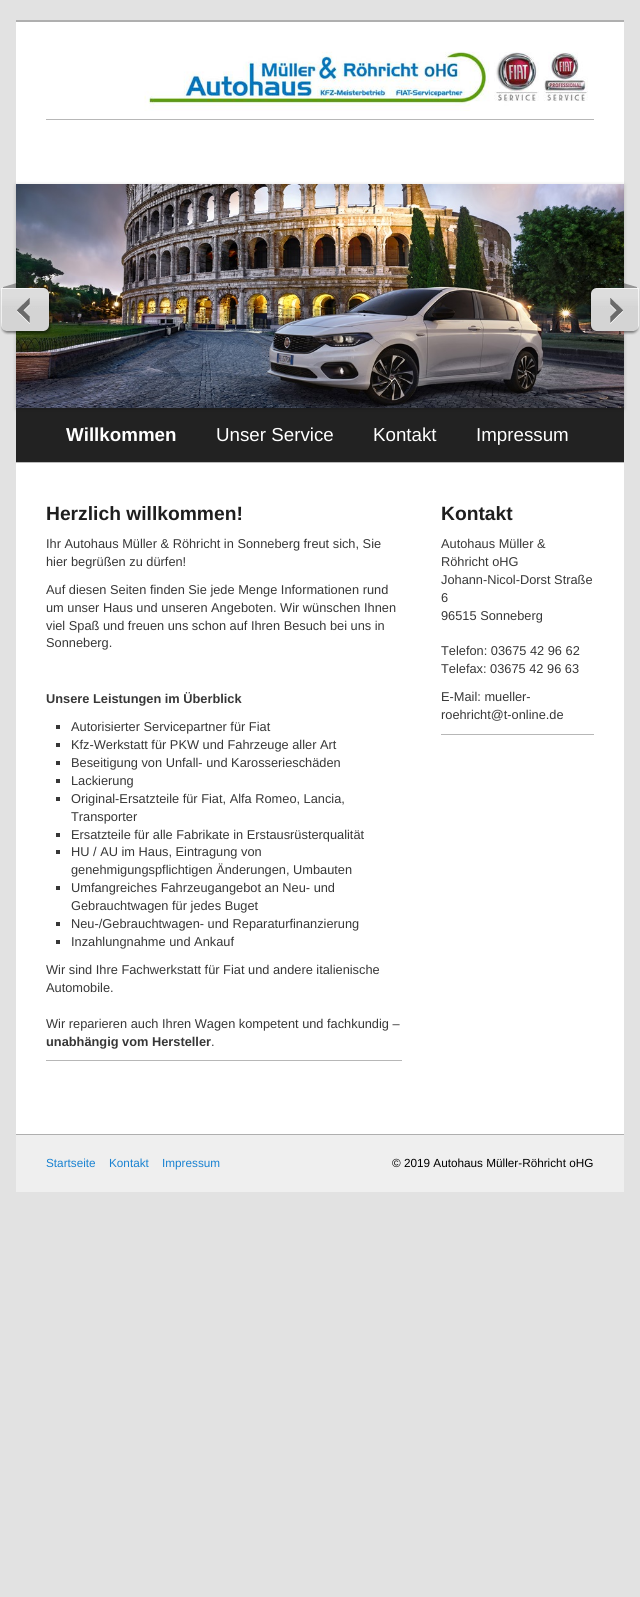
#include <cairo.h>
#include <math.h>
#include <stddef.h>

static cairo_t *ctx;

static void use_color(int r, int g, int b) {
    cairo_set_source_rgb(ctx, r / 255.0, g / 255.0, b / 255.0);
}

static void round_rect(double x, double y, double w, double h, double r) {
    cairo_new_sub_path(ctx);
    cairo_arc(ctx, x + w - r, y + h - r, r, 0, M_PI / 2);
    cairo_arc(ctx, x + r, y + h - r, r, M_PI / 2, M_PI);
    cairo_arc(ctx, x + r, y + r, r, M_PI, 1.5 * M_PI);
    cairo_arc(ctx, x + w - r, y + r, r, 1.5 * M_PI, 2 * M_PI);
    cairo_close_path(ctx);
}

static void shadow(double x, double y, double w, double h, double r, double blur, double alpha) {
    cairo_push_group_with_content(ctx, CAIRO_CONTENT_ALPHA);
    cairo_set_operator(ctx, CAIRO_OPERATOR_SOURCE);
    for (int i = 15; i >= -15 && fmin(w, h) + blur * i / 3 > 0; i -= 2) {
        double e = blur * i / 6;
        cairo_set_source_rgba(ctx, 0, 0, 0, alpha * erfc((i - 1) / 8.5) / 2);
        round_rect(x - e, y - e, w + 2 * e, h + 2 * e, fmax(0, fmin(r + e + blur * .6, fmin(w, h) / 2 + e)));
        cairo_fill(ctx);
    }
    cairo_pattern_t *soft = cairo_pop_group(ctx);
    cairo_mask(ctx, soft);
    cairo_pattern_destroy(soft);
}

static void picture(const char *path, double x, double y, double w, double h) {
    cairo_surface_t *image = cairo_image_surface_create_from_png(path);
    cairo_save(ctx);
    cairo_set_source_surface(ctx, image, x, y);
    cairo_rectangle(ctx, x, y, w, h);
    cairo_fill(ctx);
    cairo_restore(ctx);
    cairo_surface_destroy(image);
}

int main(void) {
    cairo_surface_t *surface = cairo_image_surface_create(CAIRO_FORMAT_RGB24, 640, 1597);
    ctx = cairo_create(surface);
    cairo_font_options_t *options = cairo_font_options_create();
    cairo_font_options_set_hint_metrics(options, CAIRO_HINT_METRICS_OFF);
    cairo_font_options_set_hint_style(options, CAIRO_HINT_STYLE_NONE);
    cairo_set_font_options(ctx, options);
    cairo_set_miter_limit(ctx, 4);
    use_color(226, 226, 226);
    cairo_paint(ctx);
    use_color(175, 175, 175);
    cairo_rectangle(ctx, 16, 20, 608, 2);
    cairo_fill(ctx);
    use_color(255, 255, 255);
    cairo_rectangle(ctx, 16, 22, 608, 162);
    cairo_fill(ctx);
    use_color(183, 183, 183);
    cairo_rectangle(ctx, 46, 119, 548, 1);
    cairo_fill(ctx);
    picture("img1.png", 144, 51, 444, 60);
    use_color(34, 34, 34);
    cairo_rectangle(ctx, 16, 408, 608, 54);
    cairo_fill(ctx);
    use_color(0, 0, 0);
    shadow(16, 185, 608, 224, 0, 2, 0.2);
    picture("img2.png", 16, 184, 608, 224);
    picture("img3.png", 0, 283, 52, 52);
    picture("img4.png", 588, 283, 52, 52);
    use_color(187, 187, 187);
    cairo_rectangle(ctx, 16, 462, 608, 1);
    cairo_fill(ctx);
    cairo_select_font_face(ctx, "Liberation Sans", CAIRO_FONT_SLANT_NORMAL, CAIRO_FONT_WEIGHT_BOLD);
    cairo_set_font_size(ctx, 18.75);
    use_color(255, 255, 255);
    cairo_move_to(ctx, 66, 441);
    cairo_show_text(ctx, "Willkommen");
    cairo_select_font_face(ctx, "Liberation Sans", CAIRO_FONT_SLANT_NORMAL, CAIRO_FONT_WEIGHT_NORMAL);
    cairo_move_to(ctx, 216, 441);
    cairo_show_text(ctx, "Unser Service");
    cairo_move_to(ctx, 373, 441);
    cairo_show_text(ctx, "Kontakt");
    cairo_move_to(ctx, 476, 441);
    cairo_show_text(ctx, "Impressum");
    cairo_rectangle(ctx, 16, 463, 608, 671);
    cairo_fill(ctx);
    use_color(183, 183, 183);
    cairo_rectangle(ctx, 46, 1060, 356, 1);
    cairo_fill(ctx);
    cairo_select_font_face(ctx, "Liberation Sans", CAIRO_FONT_SLANT_NORMAL, CAIRO_FONT_WEIGHT_BOLD);
    cairo_set_font_size(ctx, 19.25);
    use_color(30, 30, 30);
    cairo_move_to(ctx, 46, 520);
    cairo_show_text(ctx, "Herzlich willkommen!");
    cairo_select_font_face(ctx, "Liberation Sans", CAIRO_FONT_SLANT_NORMAL, CAIRO_FONT_WEIGHT_NORMAL);
    cairo_set_font_size(ctx, 12.8);
    use_color(55, 55, 55);
    cairo_move_to(ctx, 46, 548);
    cairo_show_text(ctx, "Ihr Autohaus Müller & Röhricht in Sonneberg freut sich, Sie");
    cairo_move_to(ctx, 46, 566);
    cairo_show_text(ctx, "hier begrüßen zu dürfen!");
    cairo_move_to(ctx, 46, 594);
    cairo_show_text(ctx, "Auf diesen Seiten finden Sie jede Menge Informationen rund");
    cairo_move_to(ctx, 46, 612);
    cairo_show_text(ctx, "um unser Haus und unseren Angeboten. Wir wünschen Ihnen");
    cairo_move_to(ctx, 46, 630);
    cairo_show_text(ctx, "viel Spaß und freuen uns schon auf Ihren Besuch bei uns in");
    cairo_move_to(ctx, 46, 647);
    cairo_show_text(ctx, "Sonneberg.");
    cairo_select_font_face(ctx, "Liberation Sans", CAIRO_FONT_SLANT_NORMAL, CAIRO_FONT_WEIGHT_BOLD);
    cairo_move_to(ctx, 46, 703);
    cairo_show_text(ctx, "Unsere Leistungen im Überblick");
    cairo_rectangle(ctx, 56, 725, 4, 4);
    cairo_fill(ctx);
    cairo_select_font_face(ctx, "Liberation Sans", CAIRO_FONT_SLANT_NORMAL, CAIRO_FONT_WEIGHT_NORMAL);
    cairo_move_to(ctx, 71, 731);
    cairo_show_text(ctx, "Autorisierter Servicepartner für Fiat");
    cairo_rectangle(ctx, 56, 743, 4, 4);
    cairo_fill(ctx);
    cairo_move_to(ctx, 71, 749);
    cairo_show_text(ctx, "Kfz-Werkstatt für PKW und Fahrzeuge aller Art");
    cairo_rectangle(ctx, 56, 761, 4, 4);
    cairo_fill(ctx);
    cairo_move_to(ctx, 71, 767);
    cairo_show_text(ctx, "Beseitigung von Unfall- und Karosserieschäden");
    cairo_rectangle(ctx, 56, 779, 4, 4);
    cairo_fill(ctx);
    cairo_move_to(ctx, 71, 785);
    cairo_show_text(ctx, "Lackierung");
    cairo_rectangle(ctx, 56, 797, 4, 4);
    cairo_fill(ctx);
    cairo_move_to(ctx, 71, 803);
    cairo_show_text(ctx, "Original-Ersatzteile für Fiat, Alfa Romeo, Lancia,");
    cairo_move_to(ctx, 71, 821);
    cairo_show_text(ctx, "Transporter");
    cairo_rectangle(ctx, 56, 833, 4, 4);
    cairo_fill(ctx);
    cairo_move_to(ctx, 71, 839);
    cairo_show_text(ctx, "Ersatzteile für alle Fabrikate in Erstausrüsterqualität");
    cairo_rectangle(ctx, 56, 850, 4, 4);
    cairo_fill(ctx);
    cairo_move_to(ctx, 71, 856);
    cairo_show_text(ctx, "HU / AU im Haus, Eintragung von");
    cairo_move_to(ctx, 71, 874);
    cairo_show_text(ctx, "genehmigungspflichtigen Änderungen, Umbauten");
    cairo_rectangle(ctx, 56, 886, 4, 4);
    cairo_fill(ctx);
    cairo_move_to(ctx, 71, 892);
    cairo_show_text(ctx, "Umfangreiches Fahrzeugangebot an Neu- und");
    cairo_move_to(ctx, 71, 910);
    cairo_show_text(ctx, "Gebrauchtwagen für jedes Buget");
    cairo_rectangle(ctx, 56, 922, 4, 4);
    cairo_fill(ctx);
    cairo_move_to(ctx, 71, 928);
    cairo_show_text(ctx, "Neu-/Gebrauchtwagen- und Reparaturfinanzierung");
    cairo_rectangle(ctx, 56, 940, 4, 4);
    cairo_fill(ctx);
    cairo_move_to(ctx, 71, 946);
    cairo_show_text(ctx, "Inzahlungnahme und Ankauf");
    cairo_move_to(ctx, 46, 974);
    cairo_show_text(ctx, "Wir sind Ihre Fachwerkstatt für Fiat und andere italienische");
    cairo_move_to(ctx, 46, 992);
    cairo_show_text(ctx, "Automobile.");
    cairo_move_to(ctx, 46, 1028);
    cairo_show_text(ctx, "Wir reparieren auch Ihren Wagen kompetent und fachkundig –");
    cairo_select_font_face(ctx, "Liberation Sans", CAIRO_FONT_SLANT_NORMAL, CAIRO_FONT_WEIGHT_BOLD);
    cairo_move_to(ctx, 46, 1046);
    cairo_show_text(ctx, "unabhängig vom Hersteller");
    cairo_select_font_face(ctx, "Liberation Sans", CAIRO_FONT_SLANT_NORMAL, CAIRO_FONT_WEIGHT_NORMAL);
    cairo_move_to(ctx, 211, 1046);
    cairo_show_text(ctx, ".");
    use_color(183, 183, 183);
    cairo_rectangle(ctx, 441, 734, 153, 1);
    cairo_fill(ctx);
    cairo_select_font_face(ctx, "Liberation Sans", CAIRO_FONT_SLANT_NORMAL, CAIRO_FONT_WEIGHT_BOLD);
    cairo_set_font_size(ctx, 19.25);
    use_color(30, 30, 30);
    cairo_move_to(ctx, 441, 520);
    cairo_show_text(ctx, "Kontakt");
    cairo_select_font_face(ctx, "Liberation Sans", CAIRO_FONT_SLANT_NORMAL, CAIRO_FONT_WEIGHT_NORMAL);
    cairo_set_font_size(ctx, 12.8);
    use_color(55, 55, 55);
    cairo_move_to(ctx, 441, 548);
    cairo_show_text(ctx, "Autohaus Müller &");
    cairo_move_to(ctx, 441, 566);
    cairo_show_text(ctx, "Röhricht oHG");
    cairo_move_to(ctx, 441, 584);
    cairo_show_text(ctx, "Johann-Nicol-Dorst Straße");
    cairo_move_to(ctx, 441, 602);
    cairo_show_text(ctx, "6");
    cairo_move_to(ctx, 441, 620);
    cairo_show_text(ctx, "96515 Sonneberg");
    cairo_move_to(ctx, 441, 655);
    cairo_show_text(ctx, "Telefon: 03675 42 96 62");
    cairo_move_to(ctx, 441, 673);
    cairo_show_text(ctx, "Telefax: 03675 42 96 63");
    cairo_move_to(ctx, 441, 701);
    cairo_show_text(ctx, "E-Mail: mueller-");
    cairo_move_to(ctx, 441, 719);
    cairo_show_text(ctx, "roehricht@t-online.de");
    use_color(239, 239, 239);
    cairo_rectangle(ctx, 16, 1135, 608, 57);
    cairo_fill(ctx);
    use_color(175, 175, 175);
    cairo_rectangle(ctx, 16, 1134, 608, 1);
    cairo_fill(ctx);
    cairo_set_font_size(ctx, 11.75);
    use_color(25, 130, 209);
    cairo_move_to(ctx, 46, 1167);
    cairo_show_text(ctx, "Startseite");
    cairo_move_to(ctx, 109, 1167);
    cairo_show_text(ctx, "Kontakt");
    cairo_move_to(ctx, 162, 1167);
    cairo_show_text(ctx, "Impressum");
    use_color(0, 0, 0);
    cairo_move_to(ctx, 392, 1167);
    cairo_show_text(ctx, "© 2019 Autohaus Müller-Röhricht oHG");
    cairo_surface_write_to_png(surface, "result.png");
    cairo_font_options_destroy(options);
    cairo_destroy(ctx);
    cairo_surface_destroy(surface);
    return 0;
}
